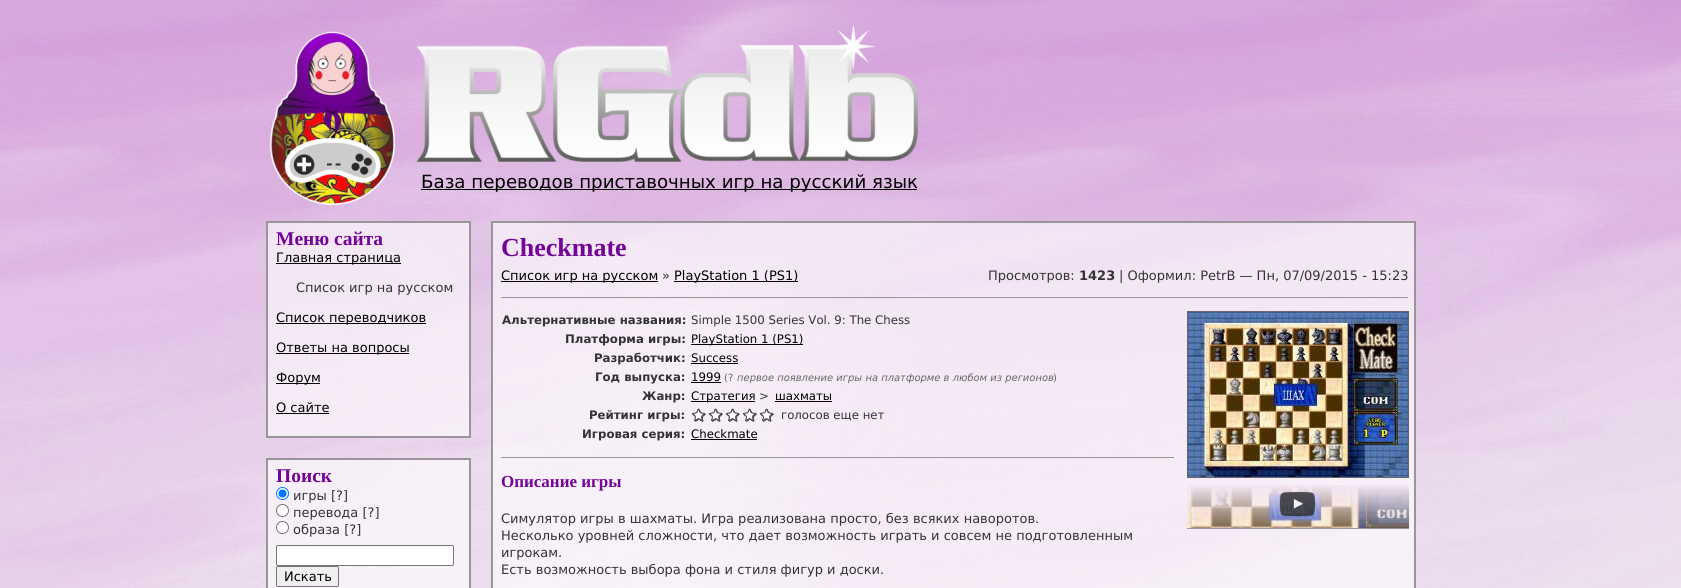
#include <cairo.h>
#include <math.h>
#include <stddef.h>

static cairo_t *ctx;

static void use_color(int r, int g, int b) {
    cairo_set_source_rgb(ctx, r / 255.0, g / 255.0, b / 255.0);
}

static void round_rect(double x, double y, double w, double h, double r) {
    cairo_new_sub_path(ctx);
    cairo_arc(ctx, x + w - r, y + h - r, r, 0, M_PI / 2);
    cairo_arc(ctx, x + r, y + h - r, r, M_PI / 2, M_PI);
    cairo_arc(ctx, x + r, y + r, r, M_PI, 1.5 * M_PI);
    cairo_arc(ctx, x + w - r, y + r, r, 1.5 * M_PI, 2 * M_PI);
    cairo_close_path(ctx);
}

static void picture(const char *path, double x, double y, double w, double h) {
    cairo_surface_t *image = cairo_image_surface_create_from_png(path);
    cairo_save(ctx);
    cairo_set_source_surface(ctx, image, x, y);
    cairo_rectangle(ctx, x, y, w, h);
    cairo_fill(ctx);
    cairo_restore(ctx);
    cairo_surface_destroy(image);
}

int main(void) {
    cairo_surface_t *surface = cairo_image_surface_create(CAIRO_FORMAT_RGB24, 1681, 588);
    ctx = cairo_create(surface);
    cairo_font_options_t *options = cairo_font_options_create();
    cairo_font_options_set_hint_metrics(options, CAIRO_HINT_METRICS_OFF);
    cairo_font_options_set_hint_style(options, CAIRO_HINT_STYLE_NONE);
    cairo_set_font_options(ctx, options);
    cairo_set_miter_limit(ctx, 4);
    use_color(255, 255, 255);
    cairo_paint(ctx);
    picture("img1.png", 0, 0, 1681, 588);
    picture("img2.png", 269, 31, 126, 174);
    picture("img3.png", 416, 26, 503, 136);
    use_color(0, 0, 0);
    cairo_rectangle(ctx, 421, 189, 496, 1);
    cairo_fill(ctx);
    cairo_select_font_face(ctx, "DejaVu Sans", CAIRO_FONT_SLANT_NORMAL, CAIRO_FONT_WEIGHT_NORMAL);
    cairo_set_font_size(ctx, 18.2);
    cairo_move_to(ctx, 421, 188);
    cairo_show_text(ctx, "База переводов приставочных игр на русский язык");
    cairo_set_source_rgba(ctx, 1, 1, 1, 0.6);
    cairo_rectangle(ctx, 267, 222, 203, 215);
    cairo_fill_preserve(ctx);
    use_color(154, 149, 155);
    cairo_stroke(ctx);
    cairo_select_font_face(ctx, "Liberation Serif", CAIRO_FONT_SLANT_NORMAL, CAIRO_FONT_WEIGHT_BOLD);
    cairo_set_font_size(ctx, 19.5);
    use_color(115, 4, 151);
    cairo_move_to(ctx, 276, 245);
    cairo_show_text(ctx, "Меню сайта");
    use_color(0, 0, 0);
    cairo_rectangle(ctx, 276, 263, 125, 1);
    cairo_fill(ctx);
    cairo_select_font_face(ctx, "DejaVu Sans", CAIRO_FONT_SLANT_NORMAL, CAIRO_FONT_WEIGHT_NORMAL);
    cairo_set_font_size(ctx, 13);
    cairo_move_to(ctx, 276, 262);
    cairo_show_text(ctx, "Главная страница");
    use_color(51, 51, 51);
    cairo_move_to(ctx, 296, 292);
    cairo_show_text(ctx, "Список игр на русском");
    use_color(0, 0, 0);
    cairo_rectangle(ctx, 276, 323, 150, 1);
    cairo_fill(ctx);
    cairo_move_to(ctx, 276, 322);
    cairo_show_text(ctx, "Список переводчиков");
    cairo_rectangle(ctx, 276, 353, 133, 1);
    cairo_fill(ctx);
    cairo_move_to(ctx, 276, 352);
    cairo_show_text(ctx, "Ответы на вопросы");
    cairo_rectangle(ctx, 276, 383, 44, 1);
    cairo_fill(ctx);
    cairo_move_to(ctx, 276, 382);
    cairo_show_text(ctx, "Форум");
    cairo_move_to(ctx, 276, 412);
    cairo_show_text(ctx, "О сайте");
    cairo_rectangle(ctx, 276, 413, 53, 1);
    cairo_fill(ctx);
    cairo_set_source_rgba(ctx, 1, 1, 1, 0.6);
    cairo_rectangle(ctx, 267, 459, 203, 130);
    cairo_fill_preserve(ctx);
    use_color(154, 149, 155);
    cairo_stroke(ctx);
    cairo_select_font_face(ctx, "Liberation Serif", CAIRO_FONT_SLANT_NORMAL, CAIRO_FONT_WEIGHT_BOLD);
    cairo_set_font_size(ctx, 19.5);
    use_color(115, 4, 151);
    cairo_move_to(ctx, 276, 482);
    cairo_show_text(ctx, "Поиск");
    use_color(255, 255, 255);
    cairo_new_path(ctx);
    cairo_arc(ctx, 282.5, 493.5, 6, 0, 2 * M_PI);
    cairo_fill_preserve(ctx);
    use_color(0, 117, 255);
    cairo_set_line_width(ctx, 1);
    cairo_stroke(ctx);
    cairo_arc(ctx, 282.5, 493.5, 4, 0, 2 * M_PI);
    cairo_fill(ctx);
    cairo_select_font_face(ctx, "DejaVu Sans", CAIRO_FONT_SLANT_NORMAL, CAIRO_FONT_WEIGHT_NORMAL);
    cairo_set_font_size(ctx, 13);
    use_color(51, 51, 51);
    cairo_move_to(ctx, 293, 500);
    cairo_show_text(ctx, "игры [?]");
    use_color(255, 255, 255);
    cairo_new_path(ctx);
    cairo_arc(ctx, 282.5, 510.5, 6, 0, 2 * M_PI);
    cairo_fill_preserve(ctx);
    use_color(118, 118, 118);
    cairo_stroke(ctx);
    use_color(51, 51, 51);
    cairo_move_to(ctx, 293, 517);
    cairo_show_text(ctx, "перевода [?]");
    use_color(255, 255, 255);
    cairo_new_path(ctx);
    cairo_arc(ctx, 282.5, 527.5, 6, 0, 2 * M_PI);
    cairo_fill_preserve(ctx);
    use_color(118, 118, 118);
    cairo_stroke(ctx);
    use_color(51, 51, 51);
    cairo_move_to(ctx, 293, 534);
    cairo_show_text(ctx, "образа [?]");
    use_color(255, 255, 255);
    round_rect(276.5, 545.5, 177, 20, 1.5);
    cairo_fill_preserve(ctx);
    use_color(118, 118, 118);
    cairo_stroke(ctx);
    use_color(239, 239, 239);
    round_rect(276.5, 566.5, 62, 20, 1.5);
    cairo_fill_preserve(ctx);
    use_color(118, 118, 118);
    cairo_stroke(ctx);
    use_color(0, 0, 0);
    cairo_move_to(ctx, 284, 581);
    cairo_show_text(ctx, "Искать");
    cairo_set_source_rgba(ctx, 1, 1, 1, 0.6);
    cairo_rectangle(ctx, 492, 222, 923, 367);
    cairo_fill_preserve(ctx);
    use_color(154, 149, 155);
    cairo_set_line_width(ctx, 2);
    cairo_stroke(ctx);
    cairo_select_font_face(ctx, "Liberation Serif", CAIRO_FONT_SLANT_NORMAL, CAIRO_FONT_WEIGHT_BOLD);
    cairo_set_font_size(ctx, 26);
    use_color(115, 4, 151);
    cairo_move_to(ctx, 501, 256);
    cairo_show_text(ctx, "Checkmate");
    use_color(0, 0, 0);
    cairo_rectangle(ctx, 501, 281, 157, 1);
    cairo_fill(ctx);
    cairo_select_font_face(ctx, "DejaVu Sans", CAIRO_FONT_SLANT_NORMAL, CAIRO_FONT_WEIGHT_NORMAL);
    cairo_set_font_size(ctx, 13);
    cairo_move_to(ctx, 501, 280);
    cairo_show_text(ctx, "Список игр на русском");
    use_color(51, 51, 51);
    cairo_move_to(ctx, 662, 280);
    cairo_show_text(ctx, "»");
    use_color(0, 0, 0);
    cairo_rectangle(ctx, 674, 281, 124, 1);
    cairo_fill(ctx);
    cairo_move_to(ctx, 674, 280);
    cairo_show_text(ctx, "PlayStation 1 (PS1)");
    use_color(51, 51, 51);
    cairo_move_to(ctx, 988, 280);
    cairo_show_text(ctx, "Просмотров:");
    cairo_select_font_face(ctx, "DejaVu Sans", CAIRO_FONT_SLANT_NORMAL, CAIRO_FONT_WEIGHT_BOLD);
    cairo_move_to(ctx, 1079, 280);
    cairo_show_text(ctx, "1423");
    cairo_select_font_face(ctx, "DejaVu Sans", CAIRO_FONT_SLANT_NORMAL, CAIRO_FONT_WEIGHT_NORMAL);
    cairo_move_to(ctx, 1119, 280);
    cairo_show_text(ctx, "| Оформил: PetrB — Пн, 07/09/2015 - 15:23");
    use_color(154, 149, 155);
    cairo_rectangle(ctx, 501, 297, 908, 1);
    cairo_fill(ctx);
    use_color(238, 238, 238);
    cairo_rectangle(ctx, 1408, 297, 1, 1);
    cairo_fill(ctx);
    use_color(159, 159, 159);
    cairo_rectangle(ctx, 501, 297, 1, 1);
    cairo_fill(ctx);
    cairo_select_font_face(ctx, "DejaVu Sans", CAIRO_FONT_SLANT_NORMAL, CAIRO_FONT_WEIGHT_BOLD);
    cairo_set_font_size(ctx, 11.75);
    use_color(51, 51, 51);
    cairo_move_to(ctx, 502, 324);
    cairo_show_text(ctx, "Альтернативные названия:");
    cairo_select_font_face(ctx, "DejaVu Sans", CAIRO_FONT_SLANT_NORMAL, CAIRO_FONT_WEIGHT_NORMAL);
    cairo_move_to(ctx, 691, 324);
    cairo_show_text(ctx, "Simple 1500 Series Vol. 9: The Chess");
    cairo_select_font_face(ctx, "DejaVu Sans", CAIRO_FONT_SLANT_NORMAL, CAIRO_FONT_WEIGHT_BOLD);
    cairo_move_to(ctx, 565, 343);
    cairo_show_text(ctx, "Платформа игры:");
    use_color(0, 0, 0);
    cairo_rectangle(ctx, 691, 344, 112, 1);
    cairo_fill(ctx);
    cairo_select_font_face(ctx, "DejaVu Sans", CAIRO_FONT_SLANT_NORMAL, CAIRO_FONT_WEIGHT_NORMAL);
    cairo_move_to(ctx, 691, 343);
    cairo_show_text(ctx, "PlayStation 1 (PS1)");
    cairo_select_font_face(ctx, "DejaVu Sans", CAIRO_FONT_SLANT_NORMAL, CAIRO_FONT_WEIGHT_BOLD);
    use_color(51, 51, 51);
    cairo_move_to(ctx, 594, 362);
    cairo_show_text(ctx, "Разработчик:");
    cairo_select_font_face(ctx, "DejaVu Sans", CAIRO_FONT_SLANT_NORMAL, CAIRO_FONT_WEIGHT_NORMAL);
    use_color(0, 0, 0);
    cairo_move_to(ctx, 691, 362);
    cairo_show_text(ctx, "Success");
    cairo_rectangle(ctx, 691, 363, 47, 1);
    cairo_fill(ctx);
    cairo_select_font_face(ctx, "DejaVu Sans", CAIRO_FONT_SLANT_NORMAL, CAIRO_FONT_WEIGHT_BOLD);
    use_color(51, 51, 51);
    cairo_move_to(ctx, 595, 381);
    cairo_show_text(ctx, "Год выпуска:");
    cairo_select_font_face(ctx, "DejaVu Sans", CAIRO_FONT_SLANT_NORMAL, CAIRO_FONT_WEIGHT_NORMAL);
    use_color(0, 0, 0);
    cairo_move_to(ctx, 691, 381);
    cairo_show_text(ctx, "1999");
    cairo_rectangle(ctx, 691, 382, 30, 1);
    cairo_fill(ctx);
    cairo_set_font_size(ctx, 9.95);
    use_color(102, 102, 102);
    cairo_move_to(ctx, 724, 381);
    cairo_show_text(ctx, "(?");
    cairo_select_font_face(ctx, "DejaVu Sans", CAIRO_FONT_SLANT_ITALIC, CAIRO_FONT_WEIGHT_NORMAL);
    cairo_move_to(ctx, 737, 381);
    cairo_show_text(ctx, "первое появление игры на платформе в любом из регионов");
    cairo_select_font_face(ctx, "DejaVu Sans", CAIRO_FONT_SLANT_NORMAL, CAIRO_FONT_WEIGHT_NORMAL);
    cairo_move_to(ctx, 1053, 381);
    cairo_show_text(ctx, ")");
    cairo_select_font_face(ctx, "DejaVu Sans", CAIRO_FONT_SLANT_NORMAL, CAIRO_FONT_WEIGHT_BOLD);
    cairo_set_font_size(ctx, 11.75);
    use_color(51, 51, 51);
    cairo_move_to(ctx, 642, 400);
    cairo_show_text(ctx, "Жанр:");
    use_color(0, 0, 0);
    cairo_rectangle(ctx, 691, 401, 64, 1);
    cairo_fill(ctx);
    cairo_select_font_face(ctx, "DejaVu Sans", CAIRO_FONT_SLANT_NORMAL, CAIRO_FONT_WEIGHT_NORMAL);
    cairo_move_to(ctx, 691, 400);
    cairo_show_text(ctx, "Стратегия");
    use_color(51, 51, 51);
    cairo_move_to(ctx, 759, 400);
    cairo_show_text(ctx, ">");
    use_color(0, 0, 0);
    cairo_move_to(ctx, 775, 400);
    cairo_show_text(ctx, "шахматы");
    cairo_rectangle(ctx, 775, 401, 57, 1);
    cairo_fill(ctx);
    cairo_select_font_face(ctx, "DejaVu Sans", CAIRO_FONT_SLANT_NORMAL, CAIRO_FONT_WEIGHT_BOLD);
    use_color(51, 51, 51);
    cairo_move_to(ctx, 589, 419);
    cairo_show_text(ctx, "Рейтинг игры:");
    picture("img4.png", 691, 408, 15, 14);
    picture("img5.png", 708, 408, 15, 14);
    picture("img6.png", 725, 408, 15, 14);
    picture("img7.png", 742, 408, 15, 14);
    picture("img8.png", 759, 408, 15, 14);
    cairo_select_font_face(ctx, "DejaVu Sans", CAIRO_FONT_SLANT_NORMAL, CAIRO_FONT_WEIGHT_NORMAL);
    cairo_move_to(ctx, 781, 419);
    cairo_show_text(ctx, "голосов еще нет");
    cairo_select_font_face(ctx, "DejaVu Sans", CAIRO_FONT_SLANT_NORMAL, CAIRO_FONT_WEIGHT_BOLD);
    cairo_move_to(ctx, 582, 438);
    cairo_show_text(ctx, "Игровая серия:");
    cairo_select_font_face(ctx, "DejaVu Sans", CAIRO_FONT_SLANT_NORMAL, CAIRO_FONT_WEIGHT_NORMAL);
    use_color(0, 0, 0);
    cairo_move_to(ctx, 691, 438);
    cairo_show_text(ctx, "Checkmate");
    cairo_rectangle(ctx, 691, 439, 66, 1);
    cairo_fill(ctx);
    cairo_rectangle(ctx, 1187.5, 311.5, 221, 166);
    use_color(102, 102, 102);
    cairo_set_line_width(ctx, 1);
    cairo_stroke(ctx);
    picture("img9.png", 1188, 312, 220, 165);
    picture("img10.png", 1187, 485, 222, 43);
    use_color(153, 153, 153);
    cairo_rectangle(ctx, 1187, 528, 222, 1);
    cairo_fill(ctx);
    picture("img11.png", 1279, 491, 37, 26);
    use_color(154, 149, 155);
    cairo_rectangle(ctx, 501, 457, 674, 1);
    cairo_fill(ctx);
    use_color(238, 238, 238);
    cairo_rectangle(ctx, 1174, 457, 1, 1);
    cairo_fill(ctx);
    use_color(159, 159, 159);
    cairo_rectangle(ctx, 501, 457, 1, 1);
    cairo_fill(ctx);
    cairo_select_font_face(ctx, "Liberation Serif", CAIRO_FONT_SLANT_NORMAL, CAIRO_FONT_WEIGHT_BOLD);
    cairo_set_font_size(ctx, 17);
    use_color(115, 4, 151);
    cairo_move_to(ctx, 501, 487);
    cairo_show_text(ctx, "Описание игры");
    cairo_select_font_face(ctx, "DejaVu Sans", CAIRO_FONT_SLANT_NORMAL, CAIRO_FONT_WEIGHT_NORMAL);
    cairo_set_font_size(ctx, 13);
    use_color(51, 51, 51);
    cairo_move_to(ctx, 501, 523);
    cairo_show_text(ctx, "Симулятор игры в шахматы. Игра реализована просто, без всяких наворотов.");
    cairo_move_to(ctx, 501, 540);
    cairo_show_text(ctx, "Несколько уровней сложности, что дает возможность играть и совсем не подготовленным");
    cairo_move_to(ctx, 501, 557);
    cairo_show_text(ctx, "игрокам.");
    cairo_move_to(ctx, 501, 574);
    cairo_show_text(ctx, "Есть возможность выбора фона и стиля фигур и доски.");
    cairo_surface_write_to_png(surface, "result.png");
    cairo_font_options_destroy(options);
    cairo_destroy(ctx);
    cairo_surface_destroy(surface);
    return 0;
}
